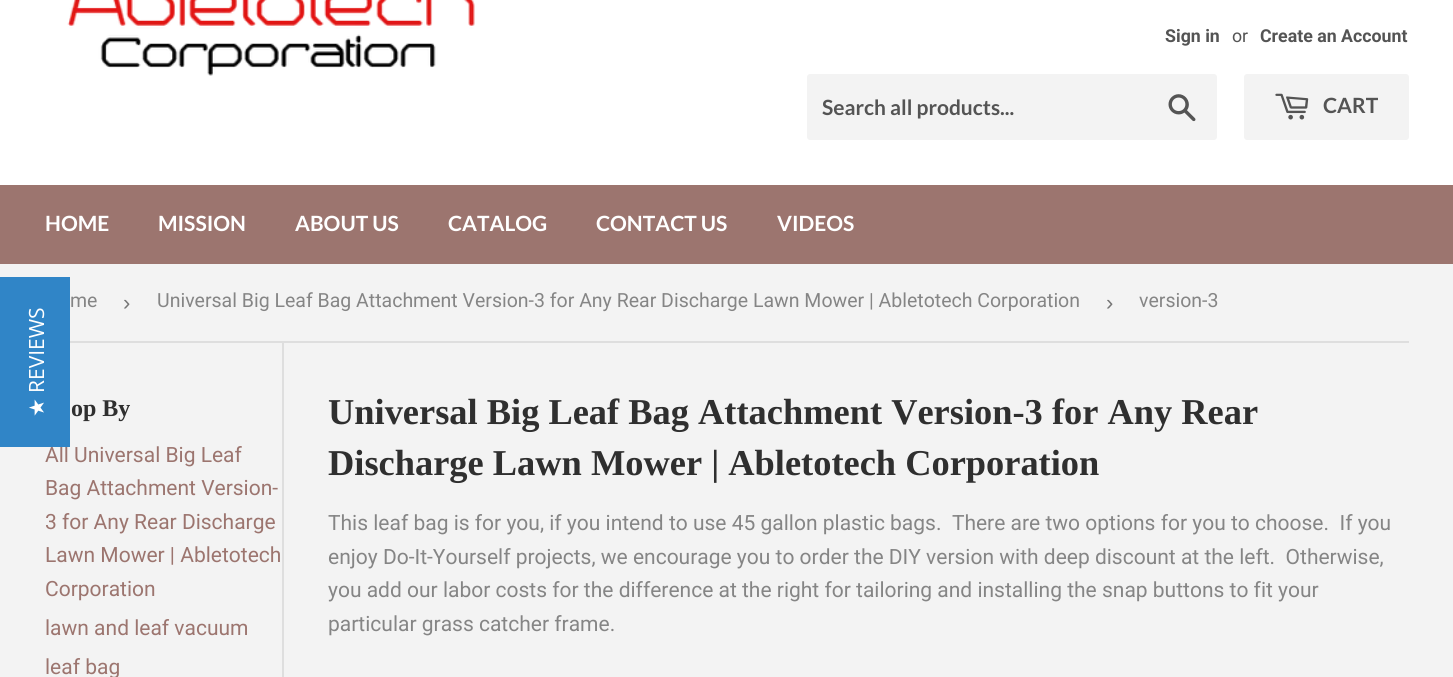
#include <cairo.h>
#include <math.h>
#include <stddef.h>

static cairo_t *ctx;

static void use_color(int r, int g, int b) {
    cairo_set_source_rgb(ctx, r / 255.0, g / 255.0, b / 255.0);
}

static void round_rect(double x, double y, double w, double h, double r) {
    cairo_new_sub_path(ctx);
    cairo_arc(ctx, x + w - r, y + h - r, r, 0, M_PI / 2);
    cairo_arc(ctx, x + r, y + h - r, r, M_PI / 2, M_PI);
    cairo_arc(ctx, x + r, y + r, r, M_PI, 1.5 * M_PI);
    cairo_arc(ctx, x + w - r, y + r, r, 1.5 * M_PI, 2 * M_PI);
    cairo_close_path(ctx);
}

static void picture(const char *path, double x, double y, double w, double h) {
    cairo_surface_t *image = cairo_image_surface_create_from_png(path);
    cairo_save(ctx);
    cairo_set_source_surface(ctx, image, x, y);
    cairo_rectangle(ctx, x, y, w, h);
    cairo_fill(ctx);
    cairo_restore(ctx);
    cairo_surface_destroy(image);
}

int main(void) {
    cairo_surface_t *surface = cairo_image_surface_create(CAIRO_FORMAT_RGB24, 1453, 677);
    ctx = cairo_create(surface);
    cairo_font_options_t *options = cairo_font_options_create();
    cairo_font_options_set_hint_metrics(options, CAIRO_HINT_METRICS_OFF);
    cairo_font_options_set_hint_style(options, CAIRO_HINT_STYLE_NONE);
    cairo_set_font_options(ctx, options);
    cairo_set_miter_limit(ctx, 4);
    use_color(243, 243, 243);
    cairo_paint(ctx);
    use_color(255, 255, 255);
    cairo_rectangle(ctx, 0, 0, 1453, 185);
    cairo_fill(ctx);
    picture("img1.png", 67, 0, 408, 76);
    cairo_select_font_face(ctx, "Roboto", CAIRO_FONT_SLANT_NORMAL, CAIRO_FONT_WEIGHT_BOLD);
    cairo_set_font_size(ctx, 17.75);
    use_color(84, 84, 84);
    cairo_move_to(ctx, 1165, 42);
    cairo_show_text(ctx, "Sign in");
    cairo_select_font_face(ctx, "Roboto", CAIRO_FONT_SLANT_NORMAL, CAIRO_FONT_WEIGHT_NORMAL);
    cairo_move_to(ctx, 1232, 42);
    cairo_show_text(ctx, "or");
    cairo_select_font_face(ctx, "Roboto", CAIRO_FONT_SLANT_NORMAL, CAIRO_FONT_WEIGHT_BOLD);
    cairo_move_to(ctx, 1260, 42);
    cairo_show_text(ctx, "Create an Account");
    use_color(243, 243, 243);
    round_rect(807, 74, 410, 66, 3);
    cairo_fill(ctx);
    cairo_select_font_face(ctx, "Lato", CAIRO_FONT_SLANT_NORMAL, CAIRO_FONT_WEIGHT_BOLD);
    cairo_set_font_size(ctx, 21);
    use_color(84, 84, 84);
    cairo_move_to(ctx, 822, 115);
    cairo_show_text(ctx, "Search all products...");
    picture("img2.png", 1168, 94, 28, 28);
    use_color(243, 243, 243);
    round_rect(1244, 74, 165, 66, 3);
    cairo_fill(ctx);
    picture("img3.png", 1275, 93, 34, 27);
    use_color(84, 84, 84);
    cairo_move_to(ctx, 1323, 113);
    cairo_show_text(ctx, "CART");
    use_color(156, 117, 111);
    cairo_rectangle(ctx, 0, 185, 1453, 79);
    cairo_fill(ctx);
    use_color(255, 255, 255);
    cairo_move_to(ctx, 45, 231);
    cairo_show_text(ctx, "HOME");
    cairo_move_to(ctx, 158, 231);
    cairo_show_text(ctx, "MISSION");
    cairo_move_to(ctx, 295, 231);
    cairo_show_text(ctx, "ABOUT US");
    cairo_move_to(ctx, 448, 231);
    cairo_show_text(ctx, "CATALOG");
    cairo_move_to(ctx, 596, 231);
    cairo_show_text(ctx, "CONTACT US");
    cairo_move_to(ctx, 777, 231);
    cairo_show_text(ctx, "VIDEOS");
    cairo_select_font_face(ctx, "Roboto", CAIRO_FONT_SLANT_NORMAL, CAIRO_FONT_WEIGHT_NORMAL);
    use_color(156, 117, 111);
    cairo_move_to(ctx, 45, 462);
    cairo_show_text(ctx, "All Universal Big Leaf");
    use_color(48, 133, 199);
    cairo_rectangle(ctx, 0, 277, 70, 170);
    cairo_fill(ctx);
    cairo_select_font_face(ctx, "Open Sans", CAIRO_FONT_SLANT_NORMAL, CAIRO_FONT_WEIGHT_NORMAL);
    use_color(255, 255, 255);
    cairo_save(ctx);
    cairo_translate(ctx, 44, 393);
    cairo_rotate(ctx, -90 * M_PI / 180);
    cairo_move_to(ctx, 0, 0);
    cairo_show_text(ctx, "REVIEWS");
    cairo_restore(ctx);
    cairo_select_font_face(ctx, "DejaVu Sans", CAIRO_FONT_SLANT_NORMAL, CAIRO_FONT_WEIGHT_NORMAL);
    cairo_save(ctx);
    cairo_translate(ctx, 44, 417);
    cairo_rotate(ctx, -90 * M_PI / 180);
    cairo_move_to(ctx, 0, 0);
    cairo_show_text(ctx, "★");
    cairo_restore(ctx);
    use_color(222, 222, 222);
    cairo_rectangle(ctx, 70, 341, 1339, 2);
    cairo_fill(ctx);
    cairo_select_font_face(ctx, "Roboto", CAIRO_FONT_SLANT_NORMAL, CAIRO_FONT_WEIGHT_NORMAL);
    cairo_set_font_size(ctx, 19.5);
    use_color(133, 133, 133);
    cairo_move_to(ctx, 70, 307);
    cairo_show_text(ctx, "me");
    cairo_select_font_face(ctx, "Liberation Sans", CAIRO_FONT_SLANT_NORMAL, CAIRO_FONT_WEIGHT_NORMAL);
    cairo_set_font_size(ctx, 22);
    use_color(118, 118, 118);
    cairo_move_to(ctx, 123, 310);
    cairo_show_text(ctx, "›");
    cairo_select_font_face(ctx, "Roboto", CAIRO_FONT_SLANT_NORMAL, CAIRO_FONT_WEIGHT_NORMAL);
    cairo_set_font_size(ctx, 19.5);
    use_color(133, 133, 133);
    cairo_move_to(ctx, 157, 307);
    cairo_show_text(ctx, "Universal Big Leaf Bag Attachment Version-3 for Any Rear Discharge Lawn Mower | Abletotech Corporation");
    cairo_select_font_face(ctx, "Liberation Sans", CAIRO_FONT_SLANT_NORMAL, CAIRO_FONT_WEIGHT_NORMAL);
    cairo_set_font_size(ctx, 22);
    use_color(118, 118, 118);
    cairo_move_to(ctx, 1106, 310);
    cairo_show_text(ctx, "›");
    cairo_select_font_face(ctx, "Roboto", CAIRO_FONT_SLANT_NORMAL, CAIRO_FONT_WEIGHT_NORMAL);
    cairo_set_font_size(ctx, 19.5);
    use_color(133, 133, 133);
    cairo_move_to(ctx, 1139, 307);
    cairo_show_text(ctx, "version-3");
    cairo_select_font_face(ctx, "Liberation Serif", CAIRO_FONT_SLANT_NORMAL, CAIRO_FONT_WEIGHT_BOLD);
    cairo_set_font_size(ctx, 24);
    use_color(47, 47, 47);
    cairo_move_to(ctx, 71, 416);
    cairo_show_text(ctx, "op By");
    cairo_select_font_face(ctx, "Roboto", CAIRO_FONT_SLANT_NORMAL, CAIRO_FONT_WEIGHT_NORMAL);
    cairo_set_font_size(ctx, 21);
    use_color(156, 117, 111);
    cairo_move_to(ctx, 45, 495);
    cairo_show_text(ctx, "Bag Attachment Version-");
    cairo_move_to(ctx, 45, 529);
    cairo_show_text(ctx, "3 for Any Rear Discharge");
    cairo_move_to(ctx, 45, 562);
    cairo_show_text(ctx, "Lawn Mower | Abletotech");
    cairo_move_to(ctx, 45, 596);
    cairo_show_text(ctx, "Corporation");
    cairo_move_to(ctx, 45, 635);
    cairo_show_text(ctx, "lawn and leaf vacuum");
    cairo_move_to(ctx, 45, 674);
    cairo_show_text(ctx, "leaf bag");
    use_color(222, 222, 222);
    cairo_rectangle(ctx, 282, 342, 2, 335);
    cairo_fill(ctx);
    cairo_select_font_face(ctx, "Liberation Serif", CAIRO_FONT_SLANT_NORMAL, CAIRO_FONT_WEIGHT_BOLD);
    cairo_set_font_size(ctx, 36.4);
    use_color(47, 47, 47);
    cairo_move_to(ctx, 328, 424);
    cairo_show_text(ctx, "Universal Big Leaf Bag Attachment Version-3 for Any Rear");
    cairo_move_to(ctx, 328, 475);
    cairo_show_text(ctx, "Discharge Lawn Mower | Abletotech Corporation");
    cairo_select_font_face(ctx, "Roboto", CAIRO_FONT_SLANT_NORMAL, CAIRO_FONT_WEIGHT_NORMAL);
    cairo_set_font_size(ctx, 21);
    use_color(133, 133, 133);
    cairo_move_to(ctx, 328, 530);
    cairo_show_text(ctx, "This leaf bag is for you, if you intend to use 45 gallon plastic bags.  There are two options for you to choose.  If you");
    cairo_move_to(ctx, 328, 564);
    cairo_show_text(ctx, "enjoy Do-It-Yourself projects, we encourage you to order the DIY version with deep discount at the left.  Otherwise,");
    cairo_move_to(ctx, 328, 597);
    cairo_show_text(ctx, "you add our labor costs for the difference at the right for tailoring and installing the snap buttons to fit your");
    cairo_move_to(ctx, 328, 631);
    cairo_show_text(ctx, "particular grass catcher frame.");
    cairo_surface_write_to_png(surface, "result.png");
    cairo_font_options_destroy(options);
    cairo_destroy(ctx);
    cairo_surface_destroy(surface);
    return 0;
}
